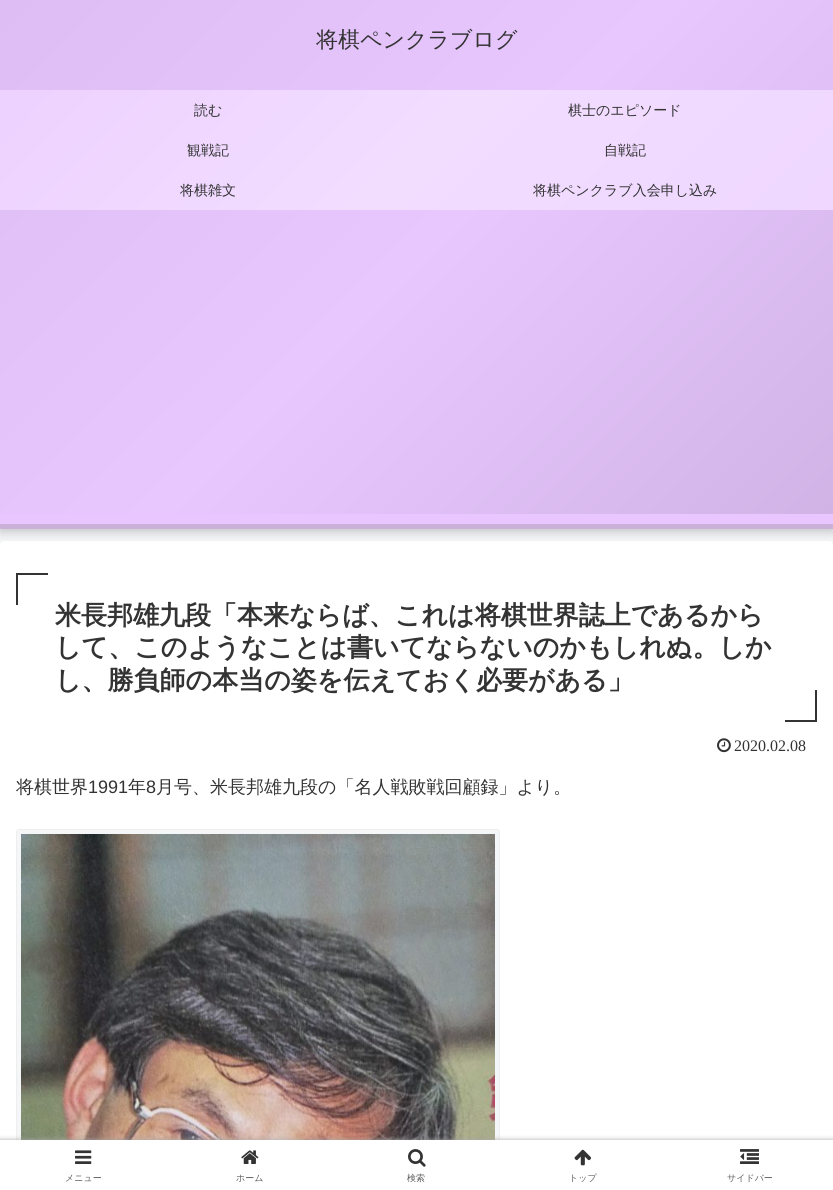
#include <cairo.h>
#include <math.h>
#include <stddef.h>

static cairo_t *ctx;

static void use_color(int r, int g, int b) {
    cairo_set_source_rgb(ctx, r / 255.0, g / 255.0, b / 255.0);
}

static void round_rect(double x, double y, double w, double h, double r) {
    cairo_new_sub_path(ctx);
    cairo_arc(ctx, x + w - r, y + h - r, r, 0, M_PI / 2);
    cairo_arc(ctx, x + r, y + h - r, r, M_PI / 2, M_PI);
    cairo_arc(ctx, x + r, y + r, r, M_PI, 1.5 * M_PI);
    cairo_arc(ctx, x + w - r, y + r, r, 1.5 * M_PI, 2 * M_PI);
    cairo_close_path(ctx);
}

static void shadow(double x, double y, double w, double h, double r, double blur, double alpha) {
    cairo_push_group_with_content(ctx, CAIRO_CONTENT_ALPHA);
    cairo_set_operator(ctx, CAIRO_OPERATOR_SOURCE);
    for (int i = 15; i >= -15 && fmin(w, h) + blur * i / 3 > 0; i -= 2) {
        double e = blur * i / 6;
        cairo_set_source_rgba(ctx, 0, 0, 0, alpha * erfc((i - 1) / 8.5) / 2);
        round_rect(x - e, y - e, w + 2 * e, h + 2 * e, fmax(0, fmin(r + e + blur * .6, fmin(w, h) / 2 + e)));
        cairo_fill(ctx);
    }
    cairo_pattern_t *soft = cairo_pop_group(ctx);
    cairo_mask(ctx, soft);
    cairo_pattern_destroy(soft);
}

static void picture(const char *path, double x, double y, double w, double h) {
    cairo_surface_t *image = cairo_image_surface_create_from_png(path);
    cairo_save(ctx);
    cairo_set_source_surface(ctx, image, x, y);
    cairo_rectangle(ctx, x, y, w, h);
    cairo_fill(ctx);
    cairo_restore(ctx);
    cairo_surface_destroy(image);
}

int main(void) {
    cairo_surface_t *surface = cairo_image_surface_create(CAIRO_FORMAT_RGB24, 833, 1190);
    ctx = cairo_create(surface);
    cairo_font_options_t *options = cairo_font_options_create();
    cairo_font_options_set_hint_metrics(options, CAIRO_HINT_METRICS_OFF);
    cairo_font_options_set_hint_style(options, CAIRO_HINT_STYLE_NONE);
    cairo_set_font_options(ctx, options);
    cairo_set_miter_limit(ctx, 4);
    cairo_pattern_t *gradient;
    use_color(244, 245, 247);
    cairo_paint(ctx);
    use_color(0, 0, 0);
    shadow(0, 3, 833, 529, 0, 5, 0.2);
    use_color(233, 198, 255);
    cairo_rectangle(ctx, 0, 514, 833, 10);
    cairo_fill(ctx);
    gradient = cairo_pattern_create_linear(80, -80, 753, 594);
    cairo_pattern_add_color_stop_rgba(gradient, 0, 0.867, 0.741, 0.953, 1);
    cairo_pattern_add_color_stop_rgba(gradient, 0.5, 0.91, 0.78, 1, 1);
    cairo_pattern_add_color_stop_rgba(gradient, 1, 0.82, 0.702, 0.902, 1);
    cairo_set_source(ctx, gradient);
    cairo_pattern_destroy(gradient);
    cairo_rectangle(ctx, 0, 0, 833, 514);
    cairo_fill(ctx);
    cairo_select_font_face(ctx, "WenQuanYi Zen Hei Medium", CAIRO_FONT_SLANT_NORMAL, CAIRO_FONT_WEIGHT_NORMAL);
    cairo_set_font_size(ctx, 22);
    use_color(51, 51, 51);
    cairo_move_to(ctx, 316, 47);
    cairo_show_text(ctx, "将棋ペンクラブログ");
    gradient = cairo_pattern_create_linear(178, -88, 655, 388);
    cairo_pattern_add_color_stop_rgba(gradient, 0, 0.929, 0.82, 1, 1);
    cairo_pattern_add_color_stop_rgba(gradient, 0.5, 0.949, 0.867, 1, 1);
    cairo_pattern_add_color_stop_rgba(gradient, 1, 0.937, 0.843, 1, 1);
    cairo_set_source(ctx, gradient);
    cairo_pattern_destroy(gradient);
    cairo_rectangle(ctx, 0, 90, 833, 120);
    cairo_fill(ctx);
    cairo_set_font_size(ctx, 14);
    use_color(51, 51, 51);
    cairo_move_to(ctx, 194, 115);
    cairo_show_text(ctx, "読む");
    cairo_move_to(ctx, 568, 115);
    cairo_show_text(ctx, "棋士のエピソード");
    cairo_move_to(ctx, 187, 155);
    cairo_show_text(ctx, "観戦記");
    cairo_move_to(ctx, 604, 155);
    cairo_show_text(ctx, "自戦記");
    cairo_move_to(ctx, 180, 195);
    cairo_show_text(ctx, "将棋雑文");
    cairo_move_to(ctx, 533, 195);
    cairo_show_text(ctx, "将棋ペンクラブ入会申し込み");
    use_color(202, 177, 217);
    cairo_rectangle(ctx, 0, 524, 833, 5);
    cairo_fill(ctx);
    use_color(255, 255, 255);
    round_rect(0, 541, 833, 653, 4);
    cairo_fill(ctx);
    use_color(51, 51, 51);
    cairo_rectangle(ctx, 16, 573, 32, 2);
    cairo_fill(ctx);
    cairo_rectangle(ctx, 16, 573, 2, 32);
    cairo_fill(ctx);
    cairo_select_font_face(ctx, "WenQuanYi Zen Hei", CAIRO_FONT_SLANT_NORMAL, CAIRO_FONT_WEIGHT_BOLD);
    cairo_set_font_size(ctx, 26);
    cairo_move_to(ctx, 55, 624);
    cairo_show_text(ctx, "米長邦雄九段「本来ならば、これは将棋世界誌上であるから");
    cairo_move_to(ctx, 55, 656);
    cairo_show_text(ctx, "して、このようなことは書いてならないのかもしれぬ。しか");
    cairo_move_to(ctx, 55, 689);
    cairo_show_text(ctx, "し、勝負師の本当の姿を伝えておく必要がある」");
    cairo_rectangle(ctx, 815, 690, 2, 32);
    cairo_fill(ctx);
    cairo_rectangle(ctx, 785, 720, 32, 2);
    cairo_fill(ctx);
    picture("img1.png", 717, 738, 14, 15);
    cairo_select_font_face(ctx, "Liberation Serif", CAIRO_FONT_SLANT_NORMAL, CAIRO_FONT_WEIGHT_NORMAL);
    cairo_set_font_size(ctx, 16);
    cairo_move_to(ctx, 734, 751);
    cairo_show_text(ctx, "2020.02.08");
    cairo_select_font_face(ctx, "WenQuanYi Zen Hei Medium", CAIRO_FONT_SLANT_NORMAL, CAIRO_FONT_WEIGHT_NORMAL);
    cairo_set_font_size(ctx, 18);
    cairo_move_to(ctx, 16, 793);
    cairo_show_text(ctx, "将棋世界");
    cairo_select_font_face(ctx, "Liberation Sans", CAIRO_FONT_SLANT_NORMAL, CAIRO_FONT_WEIGHT_NORMAL);
    cairo_move_to(ctx, 88, 793);
    cairo_show_text(ctx, "1991");
    cairo_select_font_face(ctx, "WenQuanYi Zen Hei Medium", CAIRO_FONT_SLANT_NORMAL, CAIRO_FONT_WEIGHT_NORMAL);
    cairo_move_to(ctx, 128, 793);
    cairo_show_text(ctx, "年");
    cairo_select_font_face(ctx, "Liberation Sans", CAIRO_FONT_SLANT_NORMAL, CAIRO_FONT_WEIGHT_NORMAL);
    cairo_move_to(ctx, 146, 793);
    cairo_show_text(ctx, "8");
    cairo_select_font_face(ctx, "WenQuanYi Zen Hei Medium", CAIRO_FONT_SLANT_NORMAL, CAIRO_FONT_WEIGHT_NORMAL);
    cairo_move_to(ctx, 156, 793);
    cairo_show_text(ctx, "月号、米長邦雄九段の「名人戦敗戦回顧録」より。");
    use_color(245, 246, 247);
    round_rect(16.5, 829.5, 483, 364, 2.5);
    cairo_fill_preserve(ctx);
    use_color(238, 238, 238);
    cairo_set_line_width(ctx, 1);
    cairo_stroke(ctx);
    picture("img2.png", 21, 834, 474, 306);
    use_color(169, 169, 169);
    shadow(0, 1140, 833, 50, 0, 2.5, 1);
    use_color(255, 255, 255);
    cairo_rectangle(ctx, 0, 1140, 833, 50);
    cairo_fill(ctx);
    picture("img3.png", 75, 1150, 17, 14);
    cairo_set_font_size(ctx, 9);
    use_color(92, 92, 92);
    cairo_move_to(ctx, 65, 1181);
    cairo_show_text(ctx, "メニュー");
    picture("img4.png", 241, 1150, 18, 14);
    cairo_move_to(ctx, 236, 1181);
    cairo_show_text(ctx, "ホーム");
    picture("img5.png", 408, 1149, 18, 18);
    cairo_move_to(ctx, 407, 1181);
    cairo_show_text(ctx, "検索");
    picture("img6.png", 574, 1149, 17, 17);
    cairo_move_to(ctx, 569, 1181);
    cairo_show_text(ctx, "トップ");
    picture("img7.png", 740, 1149, 19, 15);
    cairo_move_to(ctx, 727, 1181);
    cairo_show_text(ctx, "サイドバー");
    cairo_surface_write_to_png(surface, "result.png");
    cairo_font_options_destroy(options);
    cairo_destroy(ctx);
    cairo_surface_destroy(surface);
    return 0;
}
